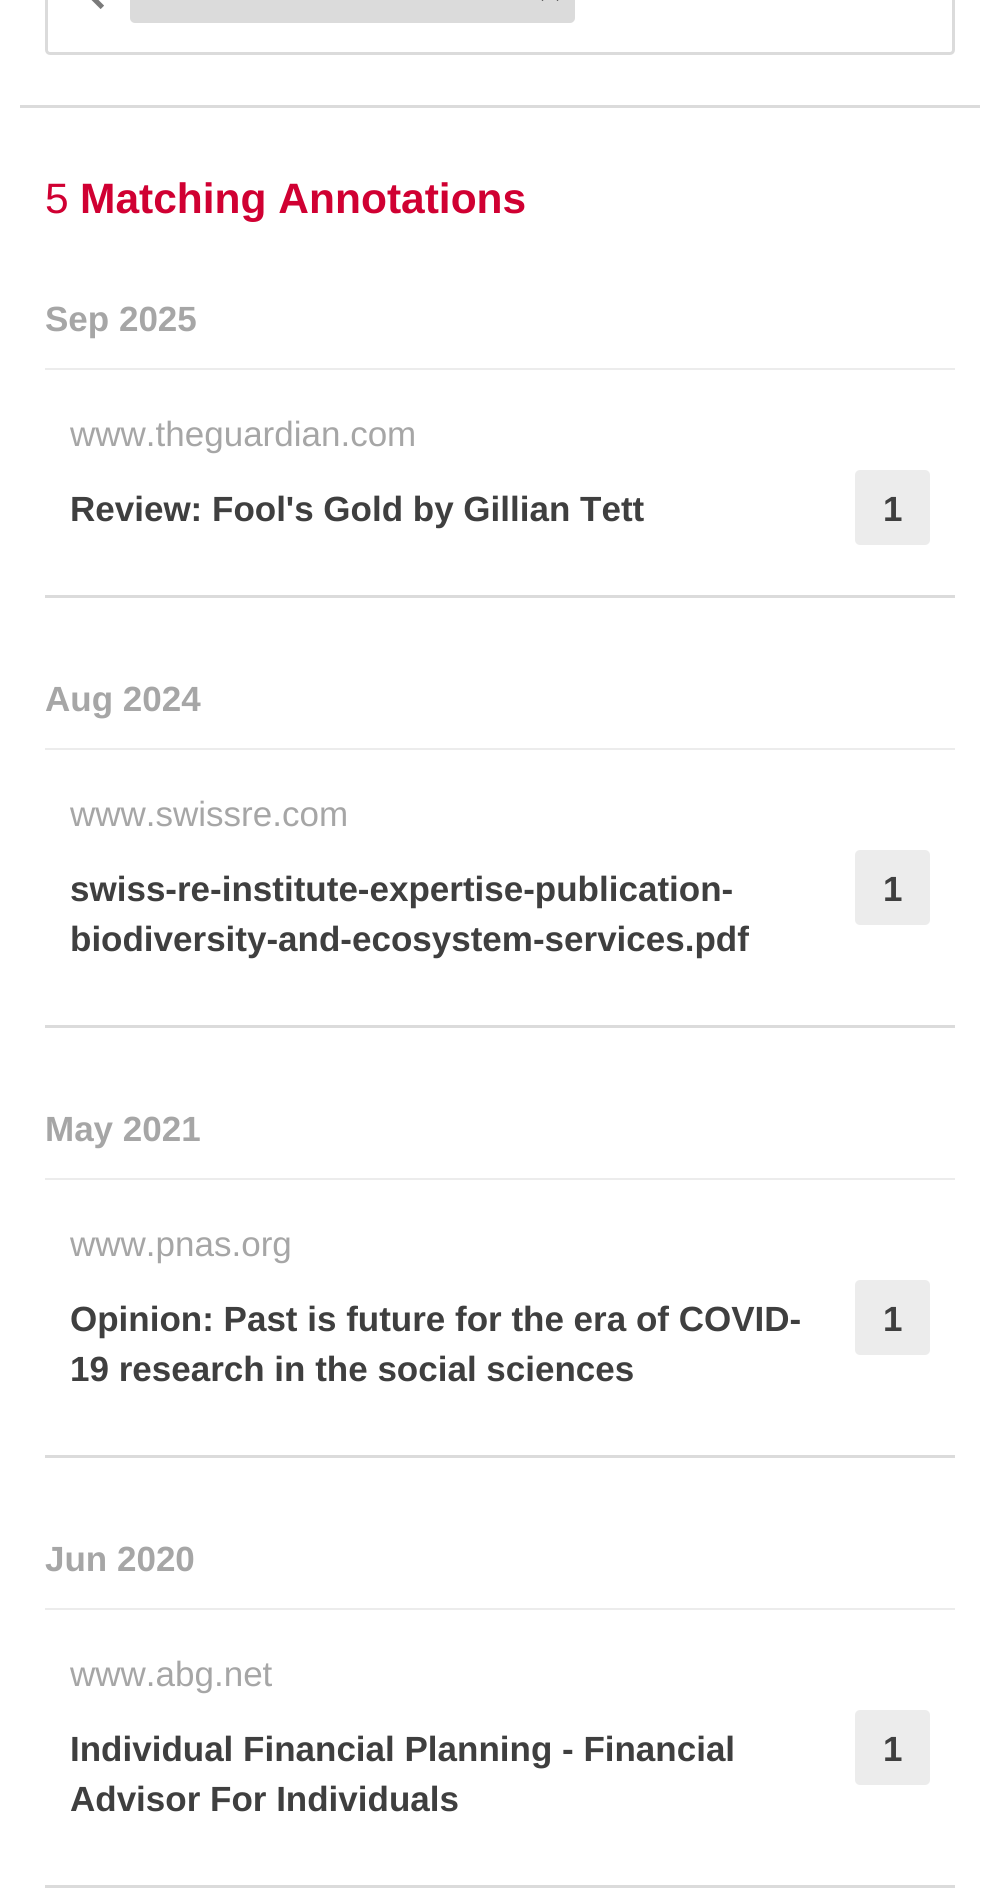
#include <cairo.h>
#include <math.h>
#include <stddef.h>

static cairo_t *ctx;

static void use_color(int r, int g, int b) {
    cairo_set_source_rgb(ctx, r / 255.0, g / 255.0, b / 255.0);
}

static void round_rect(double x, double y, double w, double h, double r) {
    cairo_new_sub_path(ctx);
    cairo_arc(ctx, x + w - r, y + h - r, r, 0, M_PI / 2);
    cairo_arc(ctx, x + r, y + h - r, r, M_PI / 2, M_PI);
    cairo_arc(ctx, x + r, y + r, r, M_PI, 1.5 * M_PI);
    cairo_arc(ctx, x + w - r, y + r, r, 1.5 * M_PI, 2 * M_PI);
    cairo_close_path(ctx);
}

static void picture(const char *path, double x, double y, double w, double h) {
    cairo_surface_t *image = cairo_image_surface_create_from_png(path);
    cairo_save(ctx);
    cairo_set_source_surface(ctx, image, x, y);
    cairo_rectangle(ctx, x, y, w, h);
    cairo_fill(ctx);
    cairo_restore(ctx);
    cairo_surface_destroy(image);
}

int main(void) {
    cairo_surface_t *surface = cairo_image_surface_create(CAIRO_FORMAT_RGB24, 1000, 1903);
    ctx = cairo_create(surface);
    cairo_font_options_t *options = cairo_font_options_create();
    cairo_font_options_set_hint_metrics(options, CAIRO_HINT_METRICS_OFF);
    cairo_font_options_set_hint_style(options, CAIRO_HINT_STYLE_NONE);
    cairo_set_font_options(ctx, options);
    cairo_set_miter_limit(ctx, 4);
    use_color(255, 255, 255);
    cairo_paint(ctx);
    use_color(219, 219, 219);
    cairo_rectangle(ctx, 20, 105, 960, 3);
    cairo_fill(ctx);
    round_rect(46.5, -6.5, 907, 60, 3.5);
    cairo_set_line_width(ctx, 3);
    cairo_stroke(ctx);
    picture("img1.png", 91, 0, 13, 9);
    round_rect(130, -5, 445, 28, 5);
    cairo_fill(ctx);
    picture("img2.png", 541, 0, 18, 1);
    cairo_select_font_face(ctx, "Liberation Sans", CAIRO_FONT_SLANT_NORMAL, CAIRO_FONT_WEIGHT_NORMAL);
    cairo_set_font_size(ctx, 42.5);
    use_color(208, 0, 50);
    cairo_move_to(ctx, 45, 213);
    cairo_show_text(ctx, "5");
    cairo_select_font_face(ctx, "Liberation Sans", CAIRO_FONT_SLANT_NORMAL, CAIRO_FONT_WEIGHT_BOLD);
    cairo_move_to(ctx, 80, 213);
    cairo_show_text(ctx, "Matching Annotations");
    use_color(236, 236, 236);
    cairo_rectangle(ctx, 45, 368, 910, 2);
    cairo_fill(ctx);
    cairo_set_font_size(ctx, 35);
    use_color(166, 166, 166);
    cairo_move_to(ctx, 45, 331);
    cairo_show_text(ctx, "Sep 2025");
    use_color(219, 219, 219);
    cairo_rectangle(ctx, 45, 595, 910, 3);
    cairo_fill(ctx);
    cairo_select_font_face(ctx, "Liberation Sans", CAIRO_FONT_SLANT_NORMAL, CAIRO_FONT_WEIGHT_NORMAL);
    use_color(166, 166, 166);
    cairo_move_to(ctx, 70, 446);
    cairo_show_text(ctx, "www.theguardian.com");
    cairo_select_font_face(ctx, "Liberation Sans", CAIRO_FONT_SLANT_NORMAL, CAIRO_FONT_WEIGHT_BOLD);
    use_color(63, 63, 63);
    cairo_move_to(ctx, 70, 521);
    cairo_show_text(ctx, "Review: Fool's Gold by Gillian Tett");
    use_color(236, 236, 236);
    round_rect(855, 470, 75, 75, 5);
    cairo_fill(ctx);
    use_color(63, 63, 63);
    cairo_move_to(ctx, 883, 521);
    cairo_show_text(ctx, "1");
    use_color(236, 236, 236);
    cairo_rectangle(ctx, 45, 748, 910, 2);
    cairo_fill(ctx);
    use_color(166, 166, 166);
    cairo_move_to(ctx, 45, 711);
    cairo_show_text(ctx, "Aug 2024");
    use_color(219, 219, 219);
    cairo_rectangle(ctx, 45, 1025, 910, 3);
    cairo_fill(ctx);
    cairo_select_font_face(ctx, "Liberation Sans", CAIRO_FONT_SLANT_NORMAL, CAIRO_FONT_WEIGHT_NORMAL);
    use_color(166, 166, 166);
    cairo_move_to(ctx, 70, 826);
    cairo_show_text(ctx, "www.swissre.com");
    cairo_select_font_face(ctx, "Liberation Sans", CAIRO_FONT_SLANT_NORMAL, CAIRO_FONT_WEIGHT_BOLD);
    use_color(63, 63, 63);
    cairo_move_to(ctx, 70, 901);
    cairo_show_text(ctx, "swiss-re-institute-expertise-publication-");
    cairo_move_to(ctx, 70, 951);
    cairo_show_text(ctx, "biodiversity-and-ecosystem-services.pdf");
    use_color(236, 236, 236);
    round_rect(855, 850, 75, 75, 5);
    cairo_fill(ctx);
    use_color(63, 63, 63);
    cairo_move_to(ctx, 883, 901);
    cairo_show_text(ctx, "1");
    use_color(236, 236, 236);
    cairo_rectangle(ctx, 45, 1178, 910, 2);
    cairo_fill(ctx);
    use_color(166, 166, 166);
    cairo_move_to(ctx, 45, 1141);
    cairo_show_text(ctx, "May 2021");
    use_color(219, 219, 219);
    cairo_rectangle(ctx, 45, 1455, 910, 3);
    cairo_fill(ctx);
    cairo_select_font_face(ctx, "Liberation Sans", CAIRO_FONT_SLANT_NORMAL, CAIRO_FONT_WEIGHT_NORMAL);
    use_color(166, 166, 166);
    cairo_move_to(ctx, 70, 1256);
    cairo_show_text(ctx, "www.pnas.org");
    cairo_select_font_face(ctx, "Liberation Sans", CAIRO_FONT_SLANT_NORMAL, CAIRO_FONT_WEIGHT_BOLD);
    use_color(63, 63, 63);
    cairo_move_to(ctx, 70, 1331);
    cairo_show_text(ctx, "Opinion: Past is future for the era of COVID-");
    cairo_move_to(ctx, 70, 1381);
    cairo_show_text(ctx, "19 research in the social sciences");
    use_color(236, 236, 236);
    round_rect(855, 1280, 75, 75, 5);
    cairo_fill(ctx);
    use_color(63, 63, 63);
    cairo_move_to(ctx, 883, 1331);
    cairo_show_text(ctx, "1");
    use_color(236, 236, 236);
    cairo_rectangle(ctx, 45, 1608, 910, 2);
    cairo_fill(ctx);
    use_color(166, 166, 166);
    cairo_move_to(ctx, 45, 1571);
    cairo_show_text(ctx, "Jun 2020");
    use_color(219, 219, 219);
    cairo_rectangle(ctx, 45, 1885, 910, 3);
    cairo_fill(ctx);
    cairo_select_font_face(ctx, "Liberation Sans", CAIRO_FONT_SLANT_NORMAL, CAIRO_FONT_WEIGHT_NORMAL);
    use_color(166, 166, 166);
    cairo_move_to(ctx, 70, 1686);
    cairo_show_text(ctx, "www.abg.net");
    cairo_select_font_face(ctx, "Liberation Sans", CAIRO_FONT_SLANT_NORMAL, CAIRO_FONT_WEIGHT_BOLD);
    use_color(63, 63, 63);
    cairo_move_to(ctx, 70, 1761);
    cairo_show_text(ctx, "Individual Financial Planning - Financial");
    cairo_move_to(ctx, 70, 1811);
    cairo_show_text(ctx, "Advisor For Individuals");
    use_color(236, 236, 236);
    round_rect(855, 1710, 75, 75, 5);
    cairo_fill(ctx);
    use_color(63, 63, 63);
    cairo_move_to(ctx, 883, 1761);
    cairo_show_text(ctx, "1");
    cairo_surface_write_to_png(surface, "result.png");
    cairo_font_options_destroy(options);
    cairo_destroy(ctx);
    cairo_surface_destroy(surface);
    return 0;
}
